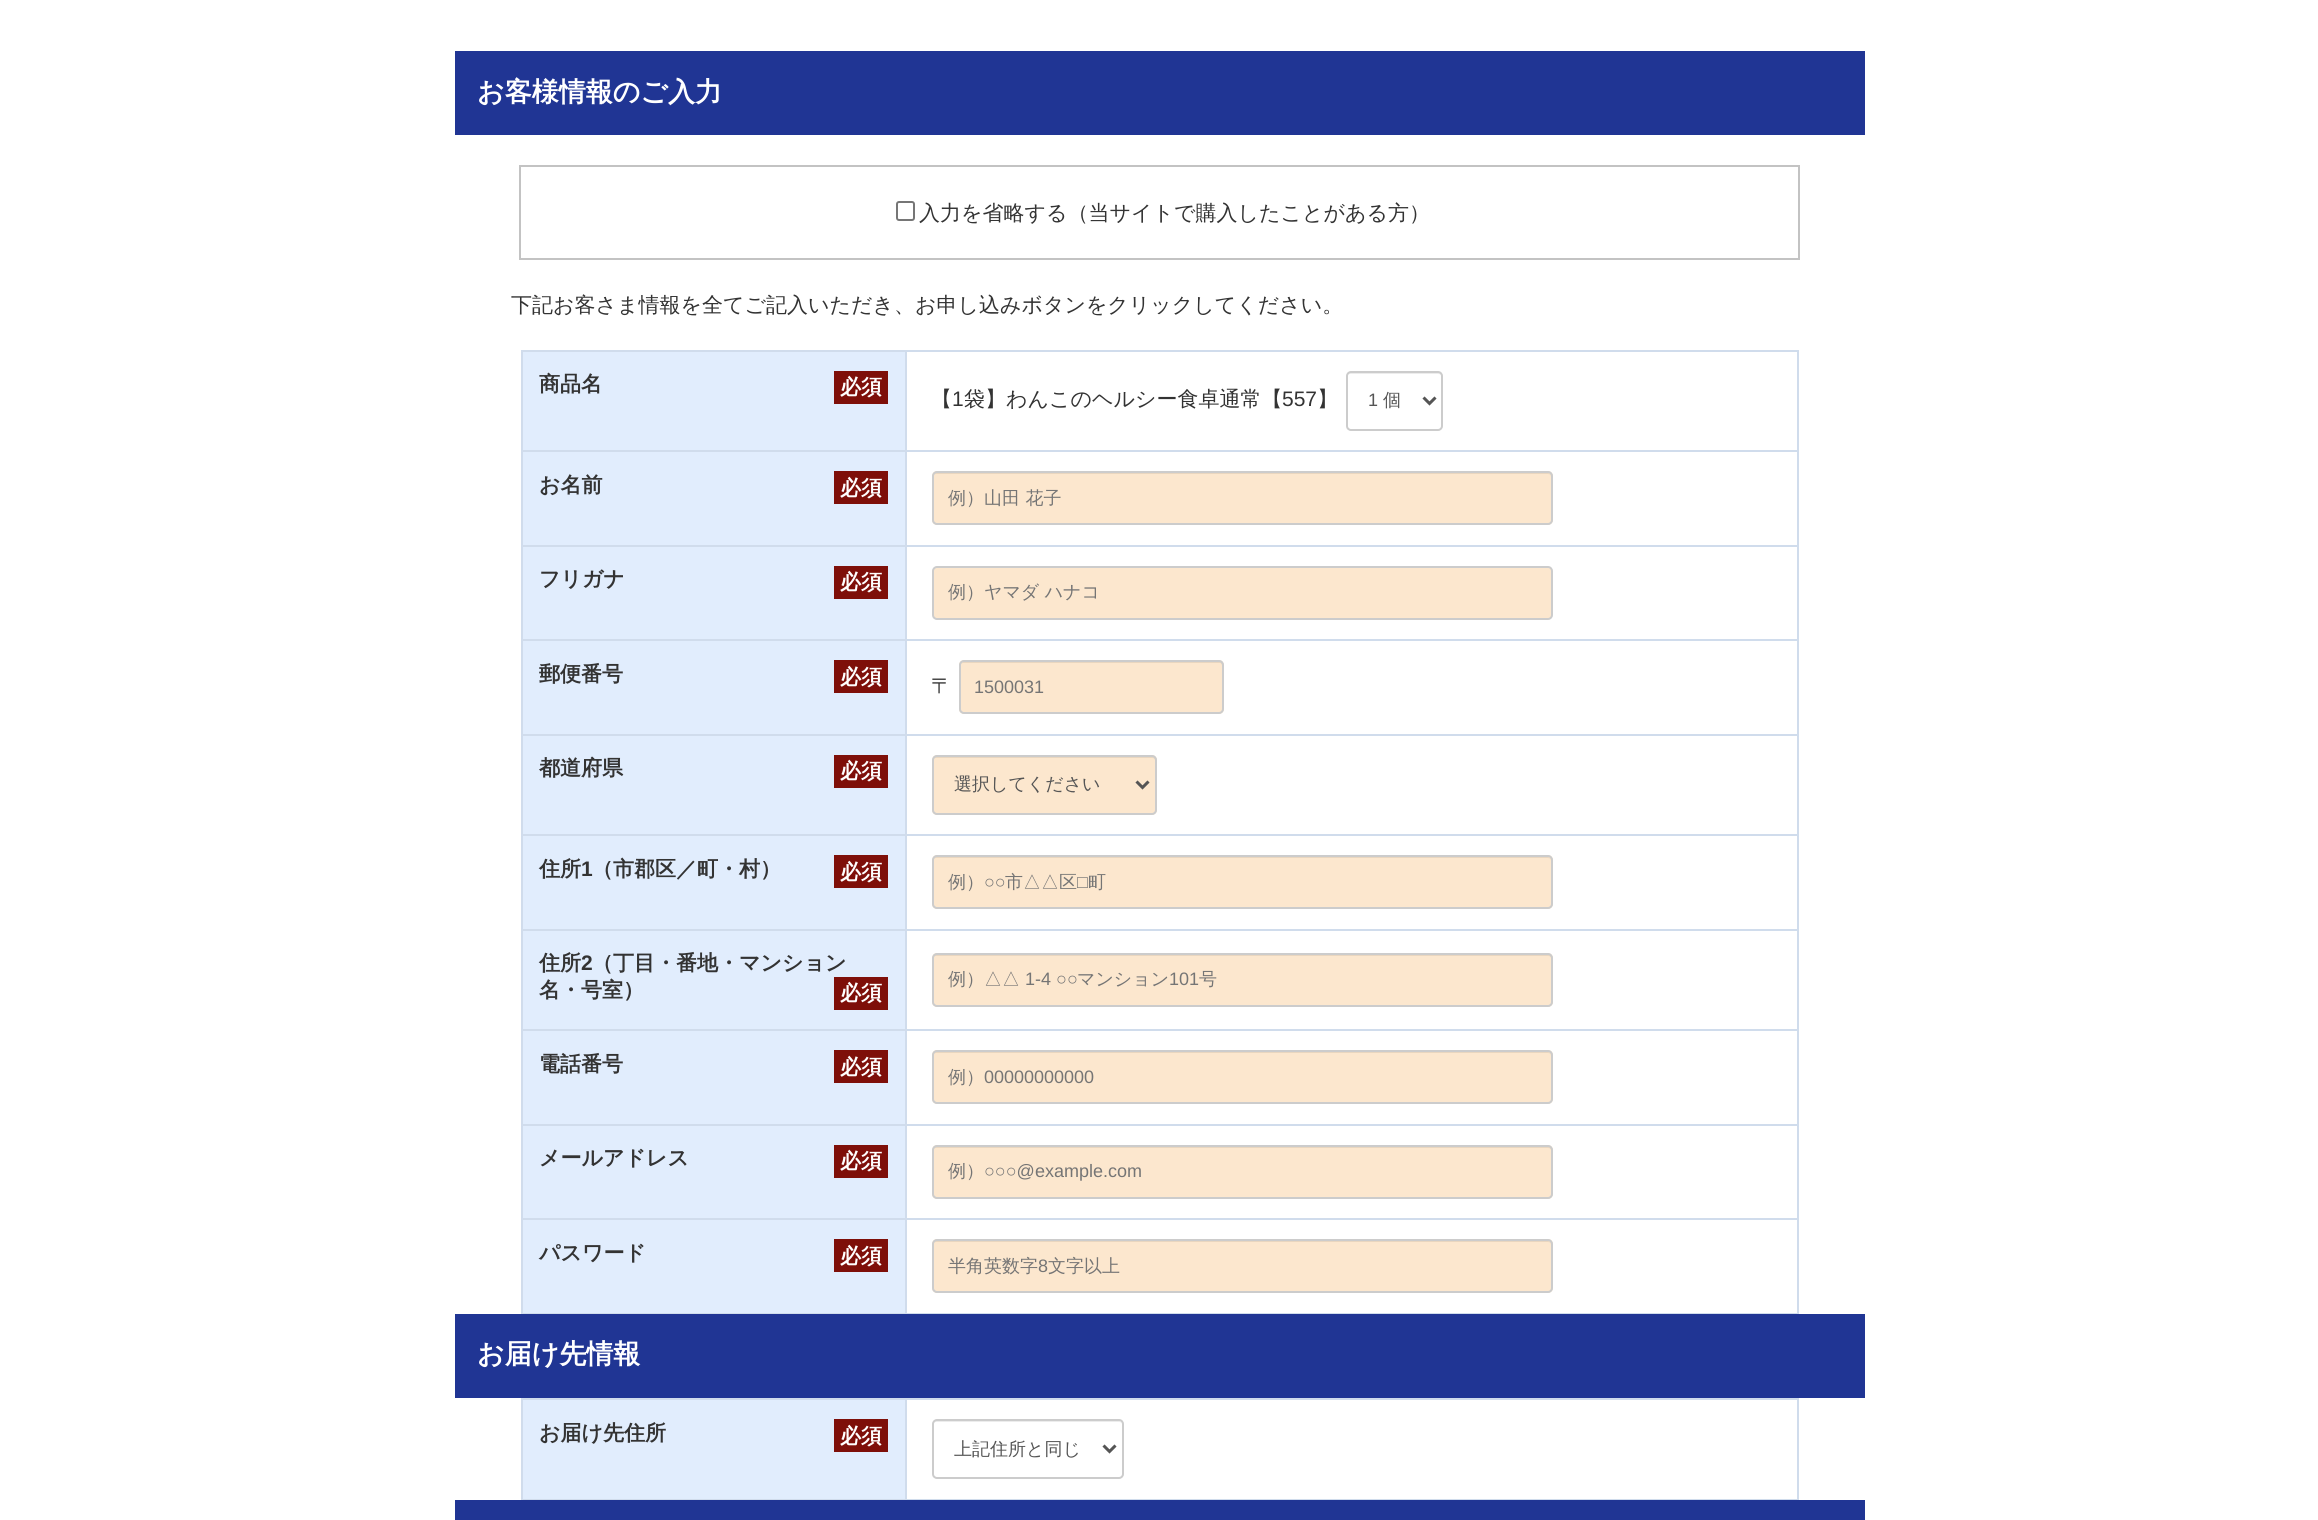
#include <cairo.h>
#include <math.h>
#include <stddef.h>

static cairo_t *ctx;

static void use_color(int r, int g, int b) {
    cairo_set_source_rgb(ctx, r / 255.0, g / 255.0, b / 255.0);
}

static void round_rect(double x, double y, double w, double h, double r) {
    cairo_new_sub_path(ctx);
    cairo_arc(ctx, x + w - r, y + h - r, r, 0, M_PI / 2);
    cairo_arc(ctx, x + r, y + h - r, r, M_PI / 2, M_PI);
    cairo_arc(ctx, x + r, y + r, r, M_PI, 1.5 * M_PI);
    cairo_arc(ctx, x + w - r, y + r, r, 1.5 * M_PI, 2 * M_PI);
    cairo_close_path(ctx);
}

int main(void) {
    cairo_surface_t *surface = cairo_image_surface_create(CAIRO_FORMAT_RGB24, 2318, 1520);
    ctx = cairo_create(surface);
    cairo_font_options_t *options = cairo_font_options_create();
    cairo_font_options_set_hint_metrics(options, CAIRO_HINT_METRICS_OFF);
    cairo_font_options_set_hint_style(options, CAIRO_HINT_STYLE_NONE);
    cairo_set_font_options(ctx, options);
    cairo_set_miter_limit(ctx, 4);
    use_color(255, 255, 255);
    cairo_paint(ctx);
    use_color(32, 53, 148);
    cairo_rectangle(ctx, 455, 51, 1410, 84);
    cairo_fill(ctx);
    cairo_select_font_face(ctx, "WenQuanYi Zen Hei", CAIRO_FONT_SLANT_NORMAL, CAIRO_FONT_WEIGHT_BOLD);
    cairo_set_font_size(ctx, 27);
    use_color(255, 255, 255);
    cairo_move_to(ctx, 477, 101);
    cairo_show_text(ctx, "お客様情報のご入力");
    cairo_rectangle(ctx, 520, 166, 1279, 93);
    use_color(195, 195, 195);
    cairo_stroke(ctx);
    round_rect(897, 202, 17, 18, 2);
    use_color(118, 118, 118);
    cairo_stroke(ctx);
    cairo_select_font_face(ctx, "WenQuanYi Zen Hei Medium", CAIRO_FONT_SLANT_NORMAL, CAIRO_FONT_WEIGHT_NORMAL);
    cairo_set_font_size(ctx, 21);
    use_color(51, 51, 51);
    cairo_move_to(ctx, 919, 220);
    cairo_show_text(ctx, "入力を省略する（当サイトで購入したことがある方）");
    cairo_move_to(ctx, 511, 312);
    cairo_show_text(ctx, "下記お客さま情報を全てご記入いただき、お申し込みボタンをクリックしてください。");
    use_color(208, 220, 236);
    cairo_rectangle(ctx, 521, 350, 1278, 2);
    cairo_fill(ctx);
    cairo_rectangle(ctx, 1797, 350, 2, 964);
    cairo_fill(ctx);
    use_color(225, 237, 253);
    cairo_rectangle(ctx, 523, 352, 382, 98);
    cairo_fill(ctx);
    use_color(208, 220, 236);
    cairo_rectangle(ctx, 905, 1313, 894, 1);
    cairo_fill(ctx);
    cairo_rectangle(ctx, 905, 1218, 2, 96);
    cairo_fill(ctx);
    cairo_rectangle(ctx, 905, 1218, 894, 2);
    cairo_fill(ctx);
    cairo_rectangle(ctx, 905, 1124, 2, 96);
    cairo_fill(ctx);
    cairo_rectangle(ctx, 905, 1124, 894, 2);
    cairo_fill(ctx);
    cairo_rectangle(ctx, 905, 1029, 2, 96);
    cairo_fill(ctx);
    cairo_rectangle(ctx, 905, 1029, 894, 2);
    cairo_fill(ctx);
    cairo_rectangle(ctx, 905, 929, 2, 102);
    cairo_fill(ctx);
    cairo_rectangle(ctx, 905, 929, 894, 2);
    cairo_fill(ctx);
    cairo_rectangle(ctx, 905, 834, 2, 96);
    cairo_fill(ctx);
    cairo_rectangle(ctx, 905, 834, 894, 2);
    cairo_fill(ctx);
    cairo_rectangle(ctx, 905, 734, 2, 102);
    cairo_fill(ctx);
    cairo_rectangle(ctx, 905, 734, 894, 2);
    cairo_fill(ctx);
    cairo_rectangle(ctx, 905, 639, 2, 96);
    cairo_fill(ctx);
    cairo_rectangle(ctx, 905, 639, 894, 2);
    cairo_fill(ctx);
    cairo_rectangle(ctx, 905, 545, 2, 96);
    cairo_fill(ctx);
    cairo_rectangle(ctx, 905, 545, 894, 2);
    cairo_fill(ctx);
    cairo_rectangle(ctx, 905, 450, 2, 96);
    cairo_fill(ctx);
    cairo_rectangle(ctx, 905, 450, 894, 2);
    cairo_fill(ctx);
    cairo_rectangle(ctx, 905, 350, 2, 102);
    cairo_fill(ctx);
    cairo_rectangle(ctx, 521, 1313, 385, 1);
    cairo_fill(ctx);
    cairo_rectangle(ctx, 521, 1218, 2, 96);
    cairo_fill(ctx);
    cairo_rectangle(ctx, 521, 1218, 385, 2);
    cairo_fill(ctx);
    cairo_rectangle(ctx, 521, 1124, 2, 96);
    cairo_fill(ctx);
    cairo_rectangle(ctx, 521, 1124, 385, 2);
    cairo_fill(ctx);
    cairo_rectangle(ctx, 521, 1029, 2, 96);
    cairo_fill(ctx);
    cairo_rectangle(ctx, 521, 1029, 385, 2);
    cairo_fill(ctx);
    cairo_rectangle(ctx, 521, 929, 2, 102);
    cairo_fill(ctx);
    cairo_rectangle(ctx, 521, 929, 385, 2);
    cairo_fill(ctx);
    cairo_rectangle(ctx, 521, 834, 2, 96);
    cairo_fill(ctx);
    cairo_rectangle(ctx, 521, 834, 385, 2);
    cairo_fill(ctx);
    cairo_rectangle(ctx, 521, 734, 2, 102);
    cairo_fill(ctx);
    cairo_rectangle(ctx, 521, 734, 385, 2);
    cairo_fill(ctx);
    cairo_rectangle(ctx, 521, 639, 2, 96);
    cairo_fill(ctx);
    cairo_rectangle(ctx, 521, 639, 385, 2);
    cairo_fill(ctx);
    cairo_rectangle(ctx, 521, 545, 2, 96);
    cairo_fill(ctx);
    cairo_rectangle(ctx, 521, 545, 385, 2);
    cairo_fill(ctx);
    cairo_rectangle(ctx, 521, 450, 2, 96);
    cairo_fill(ctx);
    cairo_rectangle(ctx, 521, 450, 385, 2);
    cairo_fill(ctx);
    cairo_rectangle(ctx, 521, 350, 2, 102);
    cairo_fill(ctx);
    cairo_select_font_face(ctx, "WenQuanYi Zen Hei", CAIRO_FONT_SLANT_NORMAL, CAIRO_FONT_WEIGHT_BOLD);
    use_color(51, 51, 51);
    cairo_move_to(ctx, 539, 391);
    cairo_show_text(ctx, "商品名");
    use_color(126, 15, 9);
    cairo_rectangle(ctx, 834, 371, 54, 33);
    cairo_fill(ctx);
    use_color(255, 255, 255);
    cairo_move_to(ctx, 840, 394);
    cairo_show_text(ctx, "必須");
    cairo_select_font_face(ctx, "WenQuanYi Zen Hei Medium", CAIRO_FONT_SLANT_NORMAL, CAIRO_FONT_WEIGHT_NORMAL);
    use_color(51, 51, 51);
    cairo_move_to(ctx, 931, 406);
    cairo_show_text(ctx, "【");
    cairo_select_font_face(ctx, "Liberation Sans", CAIRO_FONT_SLANT_NORMAL, CAIRO_FONT_WEIGHT_NORMAL);
    cairo_move_to(ctx, 952, 406);
    cairo_show_text(ctx, "1");
    cairo_select_font_face(ctx, "WenQuanYi Zen Hei Medium", CAIRO_FONT_SLANT_NORMAL, CAIRO_FONT_WEIGHT_NORMAL);
    cairo_move_to(ctx, 964, 406);
    cairo_show_text(ctx, "袋】わんこのヘルシー食卓通常【");
    cairo_select_font_face(ctx, "Liberation Sans", CAIRO_FONT_SLANT_NORMAL, CAIRO_FONT_WEIGHT_NORMAL);
    cairo_move_to(ctx, 1282, 406);
    cairo_show_text(ctx, "557");
    cairo_select_font_face(ctx, "WenQuanYi Zen Hei Medium", CAIRO_FONT_SLANT_NORMAL, CAIRO_FONT_WEIGHT_NORMAL);
    cairo_move_to(ctx, 1317, 406);
    cairo_show_text(ctx, "】");
    use_color(236, 236, 236);
    cairo_new_path(ctx);
    cairo_move_to(ctx, 1350, 374);
    cairo_line_to(ctx, 1438, 374);
    cairo_curve_to(ctx, 1440, 374, 1442, 375, 1442, 376);
    cairo_curve_to(ctx, 1442, 368, 1427, 372, 1424, 372);
    cairo_line_to(ctx, 1365, 372);
    cairo_curve_to(ctx, 1362, 372, 1347, 368, 1347, 376);
    cairo_curve_to(ctx, 1347, 375, 1348, 374, 1350, 374);
    cairo_close_path(ctx);
    cairo_fill(ctx);
    round_rect(1347, 372, 95, 58, 4);
    use_color(204, 204, 204);
    cairo_stroke(ctx);
    cairo_new_path(ctx);
    cairo_move_to(ctx, 1423.5, 397.5);
    cairo_line_to(ctx, 1429.5, 403.5);
    cairo_line_to(ctx, 1435.5, 397.5);
    use_color(85, 85, 85);
    cairo_set_line_width(ctx, 3);
    cairo_stroke(ctx);
    cairo_select_font_face(ctx, "Liberation Sans", CAIRO_FONT_SLANT_NORMAL, CAIRO_FONT_WEIGHT_NORMAL);
    cairo_set_font_size(ctx, 18);
    cairo_move_to(ctx, 1368, 406);
    cairo_show_text(ctx, "1");
    cairo_select_font_face(ctx, "WenQuanYi Zen Hei Medium", CAIRO_FONT_SLANT_NORMAL, CAIRO_FONT_WEIGHT_NORMAL);
    cairo_move_to(ctx, 1383, 406);
    cairo_show_text(ctx, "個");
    use_color(225, 237, 253);
    cairo_rectangle(ctx, 523, 452, 382, 93);
    cairo_fill(ctx);
    cairo_select_font_face(ctx, "WenQuanYi Zen Hei", CAIRO_FONT_SLANT_NORMAL, CAIRO_FONT_WEIGHT_BOLD);
    cairo_set_font_size(ctx, 21);
    use_color(51, 51, 51);
    cairo_move_to(ctx, 539, 492);
    cairo_show_text(ctx, "お名前");
    use_color(126, 15, 9);
    cairo_rectangle(ctx, 834, 471, 54, 33);
    cairo_fill(ctx);
    use_color(255, 255, 255);
    cairo_move_to(ctx, 840, 495);
    cairo_show_text(ctx, "必須");
    use_color(252, 231, 206);
    round_rect(932, 471, 621, 54, 5);
    cairo_fill(ctx);
    use_color(233, 214, 191);
    cairo_new_path(ctx);
    cairo_move_to(ctx, 936, 474);
    cairo_line_to(ctx, 1548, 474);
    cairo_curve_to(ctx, 1550, 474, 1551, 475, 1551, 477);
    cairo_line_to(ctx, 1551, 476);
    cairo_curve_to(ctx, 1551, 474, 1550, 473, 1548, 473);
    cairo_line_to(ctx, 936, 473);
    cairo_curve_to(ctx, 934, 473, 933, 474, 933, 476);
    cairo_line_to(ctx, 933, 477);
    cairo_curve_to(ctx, 933, 475, 934, 474, 936, 474);
    cairo_close_path(ctx);
    cairo_fill(ctx);
    round_rect(933, 472, 619, 52, 4);
    use_color(204, 204, 204);
    cairo_set_line_width(ctx, 2);
    cairo_stroke(ctx);
    cairo_select_font_face(ctx, "WenQuanYi Zen Hei Medium", CAIRO_FONT_SLANT_NORMAL, CAIRO_FONT_WEIGHT_NORMAL);
    cairo_set_font_size(ctx, 18);
    use_color(117, 117, 117);
    cairo_move_to(ctx, 948, 504);
    cairo_show_text(ctx, "例）山田 花子");
    use_color(225, 237, 253);
    cairo_rectangle(ctx, 523, 547, 382, 92);
    cairo_fill(ctx);
    cairo_select_font_face(ctx, "WenQuanYi Zen Hei", CAIRO_FONT_SLANT_NORMAL, CAIRO_FONT_WEIGHT_BOLD);
    cairo_set_font_size(ctx, 21);
    use_color(51, 51, 51);
    cairo_move_to(ctx, 539, 586);
    cairo_show_text(ctx, "フリガナ");
    use_color(126, 15, 9);
    cairo_rectangle(ctx, 834, 566, 54, 33);
    cairo_fill(ctx);
    use_color(255, 255, 255);
    cairo_move_to(ctx, 840, 589);
    cairo_show_text(ctx, "必須");
    use_color(252, 231, 206);
    round_rect(933, 567, 619, 52, 4);
    cairo_fill_preserve(ctx);
    use_color(204, 204, 204);
    cairo_stroke(ctx);
    cairo_select_font_face(ctx, "WenQuanYi Zen Hei Medium", CAIRO_FONT_SLANT_NORMAL, CAIRO_FONT_WEIGHT_NORMAL);
    cairo_set_font_size(ctx, 18);
    use_color(117, 117, 117);
    cairo_move_to(ctx, 948, 598);
    cairo_show_text(ctx, "例）ヤマダ ハナコ");
    use_color(225, 237, 253);
    cairo_rectangle(ctx, 523, 641, 382, 93);
    cairo_fill(ctx);
    cairo_select_font_face(ctx, "WenQuanYi Zen Hei", CAIRO_FONT_SLANT_NORMAL, CAIRO_FONT_WEIGHT_BOLD);
    cairo_set_font_size(ctx, 21);
    use_color(51, 51, 51);
    cairo_move_to(ctx, 539, 681);
    cairo_show_text(ctx, "郵便番号");
    use_color(126, 15, 9);
    cairo_rectangle(ctx, 834, 660, 54, 33);
    cairo_fill(ctx);
    use_color(255, 255, 255);
    cairo_move_to(ctx, 840, 684);
    cairo_show_text(ctx, "必須");
    cairo_select_font_face(ctx, "WenQuanYi Zen Hei Medium", CAIRO_FONT_SLANT_NORMAL, CAIRO_FONT_WEIGHT_NORMAL);
    use_color(51, 51, 51);
    cairo_move_to(ctx, 931, 693);
    cairo_show_text(ctx, "〒");
    use_color(252, 231, 206);
    round_rect(959, 660, 265, 54, 5);
    cairo_fill(ctx);
    use_color(233, 214, 191);
    cairo_new_path(ctx);
    cairo_move_to(ctx, 963, 663);
    cairo_line_to(ctx, 1220, 663);
    cairo_curve_to(ctx, 1221, 663, 1222, 664, 1222, 666);
    cairo_line_to(ctx, 1222, 712);
    cairo_line_to(ctx, 1223, 710);
    cairo_curve_to(ctx, 1223, 706, 1223, 665, 1222, 663);
    cairo_line_to(ctx, 1221, 662);
    cairo_line_to(ctx, 963, 662);
    cairo_line_to(ctx, 961, 663);
    cairo_line_to(ctx, 960, 666);
    cairo_curve_to(ctx, 960, 664, 961, 663, 963, 663);
    cairo_close_path(ctx);
    cairo_fill(ctx);
    round_rect(960, 661, 263, 52, 4);
    use_color(204, 204, 204);
    cairo_stroke(ctx);
    cairo_select_font_face(ctx, "Liberation Sans", CAIRO_FONT_SLANT_NORMAL, CAIRO_FONT_WEIGHT_NORMAL);
    cairo_set_font_size(ctx, 18);
    use_color(117, 117, 117);
    cairo_move_to(ctx, 974, 693);
    cairo_show_text(ctx, "1500031");
    use_color(225, 237, 253);
    cairo_rectangle(ctx, 523, 736, 382, 98);
    cairo_fill(ctx);
    cairo_select_font_face(ctx, "WenQuanYi Zen Hei", CAIRO_FONT_SLANT_NORMAL, CAIRO_FONT_WEIGHT_BOLD);
    cairo_set_font_size(ctx, 21);
    use_color(51, 51, 51);
    cairo_move_to(ctx, 539, 775);
    cairo_show_text(ctx, "都道府県");
    use_color(126, 15, 9);
    cairo_rectangle(ctx, 834, 755, 54, 33);
    cairo_fill(ctx);
    use_color(255, 255, 255);
    cairo_move_to(ctx, 840, 778);
    cairo_show_text(ctx, "必須");
    use_color(252, 231, 206);
    round_rect(932, 755, 225, 60, 5);
    cairo_fill(ctx);
    use_color(233, 214, 191);
    cairo_new_path(ctx);
    cairo_move_to(ctx, 936, 758);
    cairo_line_to(ctx, 1152, 758);
    cairo_curve_to(ctx, 1154, 758, 1155, 759, 1155, 760);
    cairo_line_to(ctx, 1155, 759);
    cairo_curve_to(ctx, 1155, 757, 1154, 756, 1152, 756);
    cairo_line_to(ctx, 936, 756);
    cairo_curve_to(ctx, 934, 756, 933, 757, 933, 759);
    cairo_line_to(ctx, 933, 760);
    cairo_curve_to(ctx, 933, 759, 934, 758, 936, 758);
    cairo_close_path(ctx);
    cairo_fill(ctx);
    round_rect(933, 756, 223, 58, 4);
    use_color(204, 204, 204);
    cairo_stroke(ctx);
    cairo_new_path(ctx);
    cairo_move_to(ctx, 1136.5, 781.5);
    cairo_line_to(ctx, 1142.5, 787.5);
    cairo_line_to(ctx, 1148.5, 781.5);
    use_color(85, 85, 85);
    cairo_set_line_width(ctx, 3);
    cairo_stroke(ctx);
    cairo_select_font_face(ctx, "WenQuanYi Zen Hei Medium", CAIRO_FONT_SLANT_NORMAL, CAIRO_FONT_WEIGHT_NORMAL);
    cairo_set_font_size(ctx, 18);
    cairo_move_to(ctx, 954, 790);
    cairo_show_text(ctx, "選択してください");
    use_color(225, 237, 253);
    cairo_rectangle(ctx, 523, 836, 382, 93);
    cairo_fill(ctx);
    cairo_select_font_face(ctx, "WenQuanYi Zen Hei", CAIRO_FONT_SLANT_NORMAL, CAIRO_FONT_WEIGHT_BOLD);
    cairo_set_font_size(ctx, 21);
    use_color(51, 51, 51);
    cairo_move_to(ctx, 539, 876);
    cairo_show_text(ctx, "住所");
    cairo_select_font_face(ctx, "Liberation Sans", CAIRO_FONT_SLANT_NORMAL, CAIRO_FONT_WEIGHT_BOLD);
    cairo_move_to(ctx, 581, 876);
    cairo_show_text(ctx, "1");
    cairo_select_font_face(ctx, "WenQuanYi Zen Hei", CAIRO_FONT_SLANT_NORMAL, CAIRO_FONT_WEIGHT_BOLD);
    cairo_move_to(ctx, 592, 876);
    cairo_show_text(ctx, "（市郡区／町・村）");
    use_color(126, 15, 9);
    cairo_rectangle(ctx, 834, 855, 54, 33);
    cairo_fill(ctx);
    use_color(255, 255, 255);
    cairo_move_to(ctx, 840, 879);
    cairo_show_text(ctx, "必須");
    use_color(252, 231, 206);
    round_rect(932, 855, 621, 54, 5);
    cairo_fill(ctx);
    use_color(233, 214, 191);
    cairo_new_path(ctx);
    cairo_move_to(ctx, 936, 858);
    cairo_line_to(ctx, 1548, 858);
    cairo_curve_to(ctx, 1550, 858, 1551, 859, 1551, 861);
    cairo_line_to(ctx, 1551, 860);
    cairo_curve_to(ctx, 1551, 858, 1550, 857, 1548, 857);
    cairo_line_to(ctx, 936, 857);
    cairo_curve_to(ctx, 934, 857, 933, 858, 933, 860);
    cairo_line_to(ctx, 933, 861);
    cairo_curve_to(ctx, 933, 859, 934, 858, 936, 858);
    cairo_close_path(ctx);
    cairo_fill(ctx);
    round_rect(933, 856, 619, 52, 4);
    use_color(204, 204, 204);
    cairo_set_line_width(ctx, 2);
    cairo_stroke(ctx);
    cairo_select_font_face(ctx, "WenQuanYi Zen Hei Medium", CAIRO_FONT_SLANT_NORMAL, CAIRO_FONT_WEIGHT_NORMAL);
    cairo_set_font_size(ctx, 18);
    use_color(117, 117, 117);
    cairo_move_to(ctx, 948, 888);
    cairo_show_text(ctx, "例）");
    cairo_select_font_face(ctx, "Liberation Sans", CAIRO_FONT_SLANT_NORMAL, CAIRO_FONT_WEIGHT_NORMAL);
    cairo_move_to(ctx, 984, 888);
    cairo_show_text(ctx, "○○");
    cairo_select_font_face(ctx, "WenQuanYi Zen Hei Medium", CAIRO_FONT_SLANT_NORMAL, CAIRO_FONT_WEIGHT_NORMAL);
    cairo_move_to(ctx, 1005, 888);
    cairo_show_text(ctx, "市△△区");
    cairo_select_font_face(ctx, "Liberation Sans", CAIRO_FONT_SLANT_NORMAL, CAIRO_FONT_WEIGHT_NORMAL);
    cairo_move_to(ctx, 1077, 888);
    cairo_show_text(ctx, "□");
    cairo_select_font_face(ctx, "WenQuanYi Zen Hei Medium", CAIRO_FONT_SLANT_NORMAL, CAIRO_FONT_WEIGHT_NORMAL);
    cairo_move_to(ctx, 1088, 888);
    cairo_show_text(ctx, "町");
    use_color(225, 237, 253);
    cairo_rectangle(ctx, 523, 931, 382, 98);
    cairo_fill(ctx);
    cairo_select_font_face(ctx, "WenQuanYi Zen Hei", CAIRO_FONT_SLANT_NORMAL, CAIRO_FONT_WEIGHT_BOLD);
    cairo_set_font_size(ctx, 21);
    use_color(51, 51, 51);
    cairo_move_to(ctx, 539, 970);
    cairo_show_text(ctx, "住所");
    cairo_select_font_face(ctx, "Liberation Sans", CAIRO_FONT_SLANT_NORMAL, CAIRO_FONT_WEIGHT_BOLD);
    cairo_move_to(ctx, 581, 970);
    cairo_show_text(ctx, "2");
    cairo_select_font_face(ctx, "WenQuanYi Zen Hei", CAIRO_FONT_SLANT_NORMAL, CAIRO_FONT_WEIGHT_BOLD);
    cairo_move_to(ctx, 592, 970);
    cairo_show_text(ctx, "（丁目・番地・マンション");
    cairo_move_to(ctx, 539, 997);
    cairo_show_text(ctx, "名・号室）");
    use_color(126, 15, 9);
    cairo_rectangle(ctx, 834, 977, 54, 33);
    cairo_fill(ctx);
    use_color(255, 255, 255);
    cairo_move_to(ctx, 840, 1000);
    cairo_show_text(ctx, "必須");
    use_color(252, 231, 206);
    round_rect(932, 953, 621, 54, 5);
    cairo_fill(ctx);
    use_color(233, 214, 191);
    cairo_new_path(ctx);
    cairo_move_to(ctx, 936, 956);
    cairo_line_to(ctx, 1548, 956);
    cairo_curve_to(ctx, 1550, 956, 1551, 957, 1551, 958);
    cairo_line_to(ctx, 1551, 957);
    cairo_curve_to(ctx, 1551, 955, 1550, 954, 1548, 954);
    cairo_line_to(ctx, 936, 954);
    cairo_curve_to(ctx, 934, 954, 933, 955, 933, 957);
    cairo_line_to(ctx, 933, 958);
    cairo_curve_to(ctx, 933, 957, 934, 956, 936, 956);
    cairo_close_path(ctx);
    cairo_fill(ctx);
    round_rect(933, 954, 619, 52, 4);
    use_color(204, 204, 204);
    cairo_stroke(ctx);
    cairo_select_font_face(ctx, "WenQuanYi Zen Hei Medium", CAIRO_FONT_SLANT_NORMAL, CAIRO_FONT_WEIGHT_NORMAL);
    cairo_set_font_size(ctx, 18);
    use_color(117, 117, 117);
    cairo_move_to(ctx, 948, 985);
    cairo_show_text(ctx, "例）△△");
    cairo_select_font_face(ctx, "Liberation Sans", CAIRO_FONT_SLANT_NORMAL, CAIRO_FONT_WEIGHT_NORMAL);
    cairo_move_to(ctx, 1025, 985);
    cairo_show_text(ctx, "1-4 ○○");
    cairo_select_font_face(ctx, "WenQuanYi Zen Hei Medium", CAIRO_FONT_SLANT_NORMAL, CAIRO_FONT_WEIGHT_NORMAL);
    cairo_move_to(ctx, 1077, 985);
    cairo_show_text(ctx, "マンション");
    cairo_select_font_face(ctx, "Liberation Sans", CAIRO_FONT_SLANT_NORMAL, CAIRO_FONT_WEIGHT_NORMAL);
    cairo_move_to(ctx, 1169, 985);
    cairo_show_text(ctx, "101");
    cairo_select_font_face(ctx, "WenQuanYi Zen Hei Medium", CAIRO_FONT_SLANT_NORMAL, CAIRO_FONT_WEIGHT_NORMAL);
    cairo_move_to(ctx, 1199, 985);
    cairo_show_text(ctx, "号");
    use_color(225, 237, 253);
    cairo_rectangle(ctx, 523, 1031, 382, 93);
    cairo_fill(ctx);
    cairo_select_font_face(ctx, "WenQuanYi Zen Hei", CAIRO_FONT_SLANT_NORMAL, CAIRO_FONT_WEIGHT_BOLD);
    cairo_set_font_size(ctx, 21);
    use_color(51, 51, 51);
    cairo_move_to(ctx, 539, 1071);
    cairo_show_text(ctx, "電話番号");
    use_color(126, 15, 9);
    cairo_rectangle(ctx, 834, 1050, 54, 33);
    cairo_fill(ctx);
    use_color(255, 255, 255);
    cairo_move_to(ctx, 840, 1074);
    cairo_show_text(ctx, "必須");
    use_color(252, 231, 206);
    round_rect(932, 1050, 621, 54, 5);
    cairo_fill(ctx);
    use_color(233, 214, 191);
    cairo_new_path(ctx);
    cairo_move_to(ctx, 936, 1053);
    cairo_line_to(ctx, 1548, 1053);
    cairo_curve_to(ctx, 1550, 1053, 1551, 1054, 1551, 1056);
    cairo_line_to(ctx, 1551, 1055);
    cairo_curve_to(ctx, 1551, 1053, 1550, 1052, 1548, 1052);
    cairo_line_to(ctx, 936, 1052);
    cairo_curve_to(ctx, 934, 1052, 933, 1053, 933, 1055);
    cairo_line_to(ctx, 933, 1056);
    cairo_curve_to(ctx, 933, 1054, 934, 1053, 936, 1053);
    cairo_close_path(ctx);
    cairo_fill(ctx);
    round_rect(933, 1051, 619, 52, 4);
    use_color(204, 204, 204);
    cairo_stroke(ctx);
    cairo_select_font_face(ctx, "WenQuanYi Zen Hei Medium", CAIRO_FONT_SLANT_NORMAL, CAIRO_FONT_WEIGHT_NORMAL);
    cairo_set_font_size(ctx, 18);
    use_color(117, 117, 117);
    cairo_move_to(ctx, 948, 1083);
    cairo_show_text(ctx, "例）");
    cairo_select_font_face(ctx, "Liberation Sans", CAIRO_FONT_SLANT_NORMAL, CAIRO_FONT_WEIGHT_NORMAL);
    cairo_move_to(ctx, 984, 1083);
    cairo_show_text(ctx, "00000000000");
    use_color(225, 237, 253);
    cairo_rectangle(ctx, 523, 1126, 382, 92);
    cairo_fill(ctx);
    cairo_select_font_face(ctx, "WenQuanYi Zen Hei", CAIRO_FONT_SLANT_NORMAL, CAIRO_FONT_WEIGHT_BOLD);
    cairo_set_font_size(ctx, 21);
    use_color(51, 51, 51);
    cairo_move_to(ctx, 539, 1165);
    cairo_show_text(ctx, "メールアドレス");
    use_color(126, 15, 9);
    cairo_rectangle(ctx, 834, 1145, 54, 33);
    cairo_fill(ctx);
    use_color(255, 255, 255);
    cairo_move_to(ctx, 840, 1168);
    cairo_show_text(ctx, "必須");
    use_color(252, 231, 206);
    round_rect(932, 1145, 621, 54, 5);
    cairo_fill(ctx);
    use_color(233, 214, 191);
    cairo_new_path(ctx);
    cairo_move_to(ctx, 936, 1148);
    cairo_line_to(ctx, 1548, 1148);
    cairo_curve_to(ctx, 1550, 1148, 1551, 1149, 1551, 1150);
    cairo_line_to(ctx, 1551, 1149);
    cairo_curve_to(ctx, 1551, 1147, 1550, 1146, 1548, 1146);
    cairo_line_to(ctx, 936, 1146);
    cairo_curve_to(ctx, 934, 1146, 933, 1147, 933, 1149);
    cairo_line_to(ctx, 933, 1150);
    cairo_curve_to(ctx, 933, 1149, 934, 1148, 936, 1148);
    cairo_close_path(ctx);
    cairo_fill(ctx);
    round_rect(933, 1146, 619, 52, 4);
    use_color(204, 204, 204);
    cairo_stroke(ctx);
    cairo_select_font_face(ctx, "WenQuanYi Zen Hei Medium", CAIRO_FONT_SLANT_NORMAL, CAIRO_FONT_WEIGHT_NORMAL);
    cairo_set_font_size(ctx, 18);
    use_color(117, 117, 117);
    cairo_move_to(ctx, 948, 1177);
    cairo_show_text(ctx, "例）");
    cairo_select_font_face(ctx, "Liberation Sans", CAIRO_FONT_SLANT_NORMAL, CAIRO_FONT_WEIGHT_NORMAL);
    cairo_move_to(ctx, 984, 1177);
    cairo_show_text(ctx, "○○○@example.com");
    use_color(225, 237, 253);
    cairo_rectangle(ctx, 523, 1220, 382, 93);
    cairo_fill(ctx);
    cairo_select_font_face(ctx, "WenQuanYi Zen Hei", CAIRO_FONT_SLANT_NORMAL, CAIRO_FONT_WEIGHT_BOLD);
    cairo_set_font_size(ctx, 21);
    use_color(51, 51, 51);
    cairo_move_to(ctx, 539, 1260);
    cairo_show_text(ctx, "パスワード");
    use_color(126, 15, 9);
    cairo_rectangle(ctx, 834, 1239, 54, 33);
    cairo_fill(ctx);
    use_color(255, 255, 255);
    cairo_move_to(ctx, 840, 1263);
    cairo_show_text(ctx, "必須");
    use_color(252, 231, 206);
    round_rect(932, 1239, 621, 54, 5);
    cairo_fill(ctx);
    use_color(233, 214, 191);
    cairo_new_path(ctx);
    cairo_move_to(ctx, 936, 1242);
    cairo_line_to(ctx, 1548, 1242);
    cairo_curve_to(ctx, 1550, 1242, 1551, 1243, 1551, 1245);
    cairo_line_to(ctx, 1551, 1244);
    cairo_curve_to(ctx, 1551, 1242, 1550, 1241, 1548, 1241);
    cairo_line_to(ctx, 936, 1241);
    cairo_curve_to(ctx, 934, 1241, 933, 1242, 933, 1244);
    cairo_line_to(ctx, 933, 1245);
    cairo_curve_to(ctx, 933, 1243, 934, 1242, 936, 1242);
    cairo_close_path(ctx);
    cairo_fill(ctx);
    round_rect(933, 1240, 619, 52, 4);
    use_color(204, 204, 204);
    cairo_stroke(ctx);
    cairo_select_font_face(ctx, "WenQuanYi Zen Hei Medium", CAIRO_FONT_SLANT_NORMAL, CAIRO_FONT_WEIGHT_NORMAL);
    cairo_set_font_size(ctx, 18);
    use_color(117, 117, 117);
    cairo_move_to(ctx, 948, 1272);
    cairo_show_text(ctx, "半角英数字");
    cairo_select_font_face(ctx, "Liberation Sans", CAIRO_FONT_SLANT_NORMAL, CAIRO_FONT_WEIGHT_NORMAL);
    cairo_move_to(ctx, 1038, 1272);
    cairo_show_text(ctx, "8");
    cairo_select_font_face(ctx, "WenQuanYi Zen Hei Medium", CAIRO_FONT_SLANT_NORMAL, CAIRO_FONT_WEIGHT_NORMAL);
    cairo_move_to(ctx, 1048, 1272);
    cairo_show_text(ctx, "文字以上");
    use_color(32, 53, 148);
    cairo_rectangle(ctx, 455, 1314, 1410, 84);
    cairo_fill(ctx);
    cairo_select_font_face(ctx, "WenQuanYi Zen Hei", CAIRO_FONT_SLANT_NORMAL, CAIRO_FONT_WEIGHT_BOLD);
    cairo_set_font_size(ctx, 27);
    use_color(255, 255, 255);
    cairo_move_to(ctx, 477, 1363);
    cairo_show_text(ctx, "お届け先情報");
    use_color(208, 220, 236);
    cairo_rectangle(ctx, 521, 1398, 1278, 2);
    cairo_fill(ctx);
    cairo_rectangle(ctx, 1797, 1398, 2, 102);
    cairo_fill(ctx);
    use_color(225, 237, 253);
    cairo_rectangle(ctx, 523, 1400, 382, 99);
    cairo_fill(ctx);
    use_color(208, 220, 236);
    cairo_rectangle(ctx, 905, 1499, 894, 1);
    cairo_fill(ctx);
    cairo_rectangle(ctx, 905, 1398, 2, 102);
    cairo_fill(ctx);
    cairo_rectangle(ctx, 521, 1499, 385, 1);
    cairo_fill(ctx);
    cairo_rectangle(ctx, 521, 1398, 2, 102);
    cairo_fill(ctx);
    cairo_set_font_size(ctx, 21);
    use_color(51, 51, 51);
    cairo_move_to(ctx, 539, 1440);
    cairo_show_text(ctx, "お届け先住所");
    use_color(126, 15, 9);
    cairo_rectangle(ctx, 834, 1419, 54, 33);
    cairo_fill(ctx);
    use_color(255, 255, 255);
    cairo_move_to(ctx, 840, 1443);
    cairo_show_text(ctx, "必須");
    use_color(236, 236, 236);
    cairo_new_path(ctx);
    cairo_move_to(ctx, 936, 1422);
    cairo_line_to(ctx, 1119, 1422);
    cairo_curve_to(ctx, 1121, 1422, 1122, 1423, 1122, 1425);
    cairo_curve_to(ctx, 1122, 1423, 1121, 1421, 1119, 1421);
    cairo_line_to(ctx, 936, 1421);
    cairo_curve_to(ctx, 934, 1421, 933, 1423, 933, 1425);
    cairo_curve_to(ctx, 933, 1423, 934, 1422, 936, 1422);
    cairo_close_path(ctx);
    cairo_fill(ctx);
    round_rect(933, 1420, 190, 58, 4);
    use_color(204, 204, 204);
    cairo_stroke(ctx);
    cairo_new_path(ctx);
    cairo_move_to(ctx, 1103.5, 1445.5);
    cairo_line_to(ctx, 1109.5, 1451.5);
    cairo_line_to(ctx, 1115.5, 1445.5);
    use_color(85, 85, 85);
    cairo_set_line_width(ctx, 3);
    cairo_stroke(ctx);
    cairo_select_font_face(ctx, "WenQuanYi Zen Hei Medium", CAIRO_FONT_SLANT_NORMAL, CAIRO_FONT_WEIGHT_NORMAL);
    cairo_set_font_size(ctx, 18);
    cairo_move_to(ctx, 954, 1455);
    cairo_show_text(ctx, "上記住所と同じ");
    use_color(32, 53, 148);
    cairo_rectangle(ctx, 455, 1500, 1410, 20);
    cairo_fill(ctx);
    cairo_surface_write_to_png(surface, "result.png");
    cairo_font_options_destroy(options);
    cairo_destroy(ctx);
    cairo_surface_destroy(surface);
    return 0;
}
